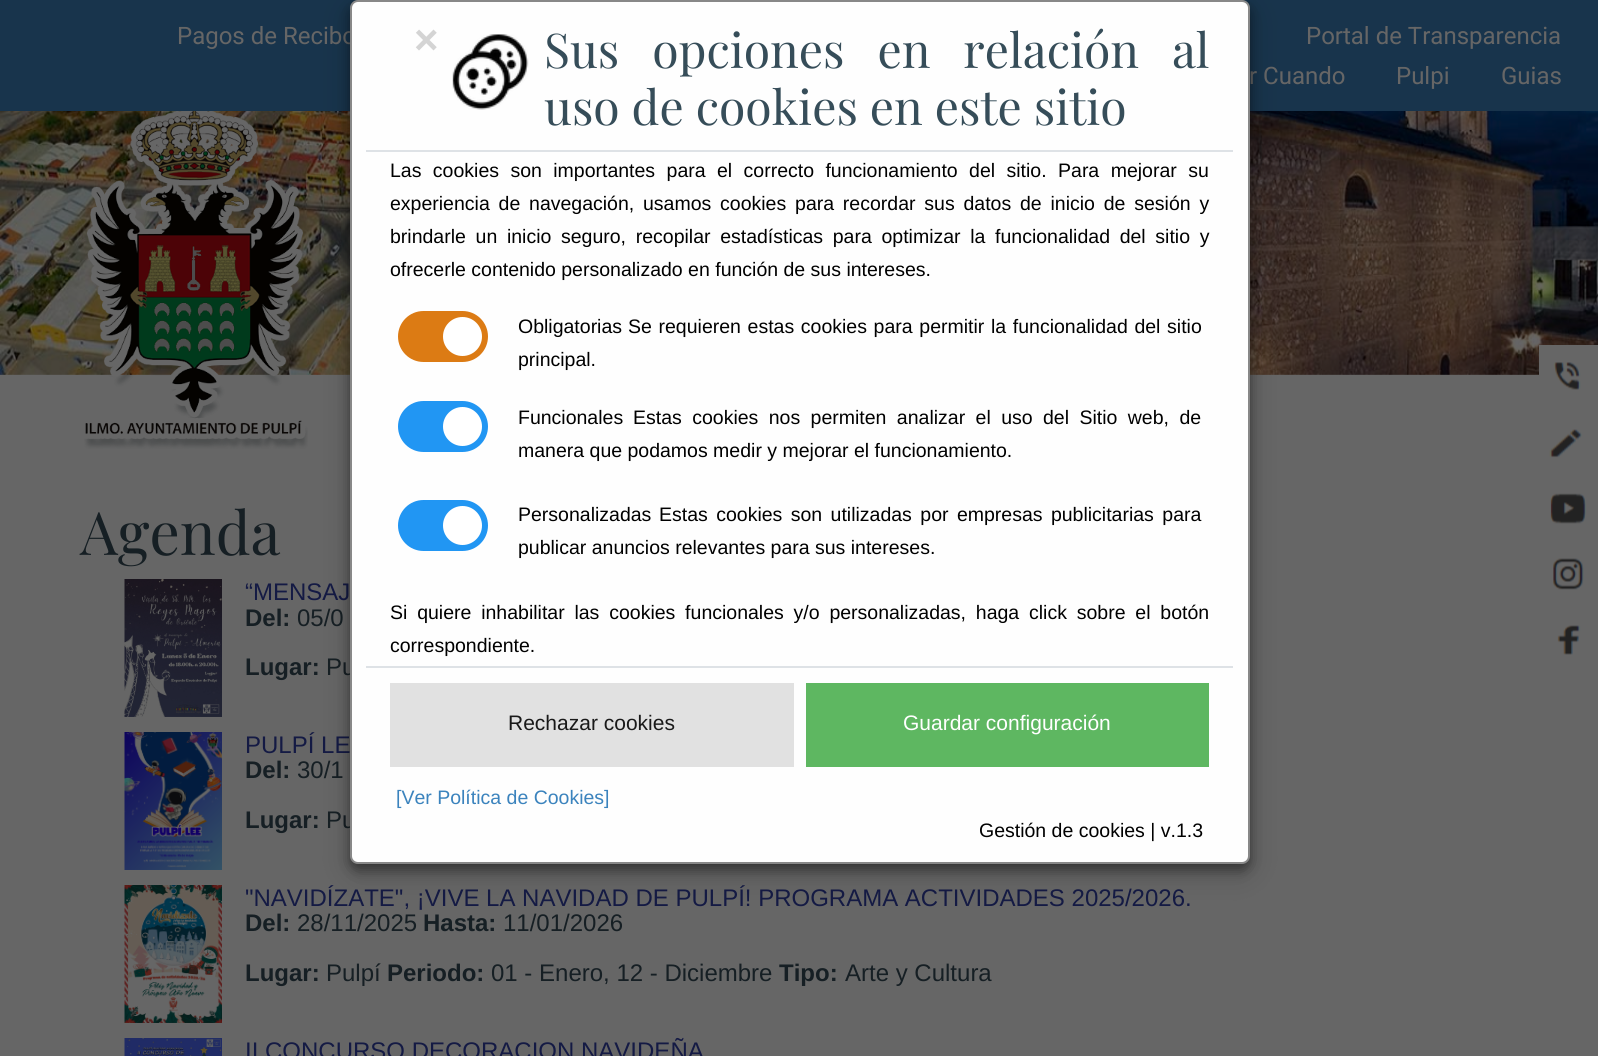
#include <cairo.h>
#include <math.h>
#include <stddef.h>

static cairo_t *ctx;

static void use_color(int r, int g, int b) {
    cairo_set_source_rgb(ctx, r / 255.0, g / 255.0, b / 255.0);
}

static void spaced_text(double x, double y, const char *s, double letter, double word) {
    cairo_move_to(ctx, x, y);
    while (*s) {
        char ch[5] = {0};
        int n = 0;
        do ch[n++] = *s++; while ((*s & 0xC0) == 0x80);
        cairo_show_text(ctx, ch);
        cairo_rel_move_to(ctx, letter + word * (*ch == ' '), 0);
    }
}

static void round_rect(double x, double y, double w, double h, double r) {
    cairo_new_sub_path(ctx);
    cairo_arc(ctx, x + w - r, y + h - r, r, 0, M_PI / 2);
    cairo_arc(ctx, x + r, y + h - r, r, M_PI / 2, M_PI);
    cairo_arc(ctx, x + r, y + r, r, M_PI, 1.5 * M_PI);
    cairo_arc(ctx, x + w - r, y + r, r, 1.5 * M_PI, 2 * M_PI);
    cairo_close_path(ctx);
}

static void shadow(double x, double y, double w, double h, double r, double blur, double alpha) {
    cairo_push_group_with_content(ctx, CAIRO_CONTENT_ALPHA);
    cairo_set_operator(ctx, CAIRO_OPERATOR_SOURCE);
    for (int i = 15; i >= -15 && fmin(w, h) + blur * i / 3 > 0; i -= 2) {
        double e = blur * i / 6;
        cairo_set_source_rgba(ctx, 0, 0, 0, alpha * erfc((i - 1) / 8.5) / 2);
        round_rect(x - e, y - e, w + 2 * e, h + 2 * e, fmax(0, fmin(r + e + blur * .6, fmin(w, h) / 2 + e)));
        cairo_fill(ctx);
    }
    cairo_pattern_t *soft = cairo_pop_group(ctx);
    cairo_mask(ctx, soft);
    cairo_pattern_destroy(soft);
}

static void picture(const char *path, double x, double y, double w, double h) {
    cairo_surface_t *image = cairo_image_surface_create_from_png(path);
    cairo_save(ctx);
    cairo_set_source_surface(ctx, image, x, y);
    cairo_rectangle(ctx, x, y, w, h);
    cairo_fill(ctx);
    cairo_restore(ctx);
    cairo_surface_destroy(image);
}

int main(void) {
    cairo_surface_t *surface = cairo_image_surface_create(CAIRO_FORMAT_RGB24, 1598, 1056);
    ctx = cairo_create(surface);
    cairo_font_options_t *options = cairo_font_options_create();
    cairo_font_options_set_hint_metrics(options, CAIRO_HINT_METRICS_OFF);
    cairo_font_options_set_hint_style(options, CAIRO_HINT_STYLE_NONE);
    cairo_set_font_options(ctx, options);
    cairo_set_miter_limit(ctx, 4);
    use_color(102, 102, 102);
    cairo_paint(ctx);
    use_color(24, 52, 76);
    cairo_rectangle(ctx, 0, 0, 1598, 111);
    cairo_fill(ctx);
    cairo_select_font_face(ctx, "Roboto", CAIRO_FONT_SLANT_NORMAL, CAIRO_FONT_WEIGHT_NORMAL);
    cairo_set_font_size(ctx, 24);
    use_color(102, 102, 102);
    cairo_move_to(ctx, 177, 44);
    cairo_show_text(ctx, "Pagos de Recibo");
    cairo_move_to(ctx, 1306, 44);
    cairo_show_text(ctx, "Portal de Transparencia");
    cairo_move_to(ctx, 1249, 84);
    cairo_show_text(ctx, "r Cuando");
    cairo_move_to(ctx, 1396, 84);
    cairo_show_text(ctx, "Pulpi");
    cairo_move_to(ctx, 1501, 84);
    cairo_show_text(ctx, "Guias");
    picture("img2.png", 0, 111, 1598, 264);
    picture("img1.png", 84, 111, 224, 338);
    cairo_select_font_face(ctx, "Playfair Display", CAIRO_FONT_SLANT_NORMAL, CAIRO_FONT_WEIGHT_NORMAL);
    cairo_set_font_size(ctx, 60);
    use_color(22, 31, 36);
    cairo_move_to(ctx, 80, 555);
    cairo_show_text(ctx, "Agenda");
    picture("img3.png", 124, 579, 98, 138);
    cairo_select_font_face(ctx, "Liberation Sans", CAIRO_FONT_SLANT_NORMAL, CAIRO_FONT_WEIGHT_NORMAL);
    cairo_set_font_size(ctx, 24);
    use_color(20, 26, 68);
    cairo_move_to(ctx, 245, 600);
    cairo_show_text(ctx, "“MENSAJ");
    cairo_select_font_face(ctx, "Liberation Sans", CAIRO_FONT_SLANT_NORMAL, CAIRO_FONT_WEIGHT_BOLD);
    use_color(22, 31, 36);
    cairo_move_to(ctx, 245, 626);
    cairo_show_text(ctx, "Del:");
    cairo_select_font_face(ctx, "Liberation Sans", CAIRO_FONT_SLANT_NORMAL, CAIRO_FONT_WEIGHT_NORMAL);
    cairo_move_to(ctx, 297, 626);
    cairo_show_text(ctx, "05/0");
    cairo_select_font_face(ctx, "Liberation Sans", CAIRO_FONT_SLANT_NORMAL, CAIRO_FONT_WEIGHT_BOLD);
    cairo_move_to(ctx, 245, 675);
    cairo_show_text(ctx, "Lugar:");
    cairo_select_font_face(ctx, "Liberation Sans", CAIRO_FONT_SLANT_NORMAL, CAIRO_FONT_WEIGHT_NORMAL);
    cairo_move_to(ctx, 326, 675);
    cairo_show_text(ctx, "Pu");
    picture("img4.png", 124, 732, 98, 138);
    use_color(20, 26, 68);
    cairo_move_to(ctx, 245, 753);
    cairo_show_text(ctx, "PULPÍ LE");
    cairo_select_font_face(ctx, "Liberation Sans", CAIRO_FONT_SLANT_NORMAL, CAIRO_FONT_WEIGHT_BOLD);
    use_color(22, 31, 36);
    cairo_move_to(ctx, 245, 778);
    cairo_show_text(ctx, "Del:");
    cairo_select_font_face(ctx, "Liberation Sans", CAIRO_FONT_SLANT_NORMAL, CAIRO_FONT_WEIGHT_NORMAL);
    cairo_move_to(ctx, 297, 778);
    cairo_show_text(ctx, "30/1");
    cairo_select_font_face(ctx, "Liberation Sans", CAIRO_FONT_SLANT_NORMAL, CAIRO_FONT_WEIGHT_BOLD);
    cairo_move_to(ctx, 245, 828);
    cairo_show_text(ctx, "Lugar:");
    cairo_select_font_face(ctx, "Liberation Sans", CAIRO_FONT_SLANT_NORMAL, CAIRO_FONT_WEIGHT_NORMAL);
    cairo_move_to(ctx, 326, 828);
    cairo_show_text(ctx, "Pu");
    picture("img5.png", 124, 885, 98, 138);
    use_color(20, 26, 68);
    cairo_move_to(ctx, 245, 906);
    cairo_show_text(ctx, "\"NAVIDÍZATE\", ¡VIVE LA NAVIDAD DE PULPÍ! PROGRAMA ACTIVIDADES 2025/2026.");
    cairo_select_font_face(ctx, "Liberation Sans", CAIRO_FONT_SLANT_NORMAL, CAIRO_FONT_WEIGHT_BOLD);
    use_color(22, 31, 36);
    cairo_move_to(ctx, 245, 931);
    cairo_show_text(ctx, "Del:");
    cairo_select_font_face(ctx, "Liberation Sans", CAIRO_FONT_SLANT_NORMAL, CAIRO_FONT_WEIGHT_NORMAL);
    cairo_move_to(ctx, 297, 931);
    cairo_show_text(ctx, "28/11/2025");
    cairo_select_font_face(ctx, "Liberation Sans", CAIRO_FONT_SLANT_NORMAL, CAIRO_FONT_WEIGHT_BOLD);
    cairo_move_to(ctx, 423, 931);
    cairo_show_text(ctx, "Hasta:");
    cairo_select_font_face(ctx, "Liberation Sans", CAIRO_FONT_SLANT_NORMAL, CAIRO_FONT_WEIGHT_NORMAL);
    cairo_move_to(ctx, 503, 931);
    cairo_show_text(ctx, "11/01/2026");
    cairo_select_font_face(ctx, "Liberation Sans", CAIRO_FONT_SLANT_NORMAL, CAIRO_FONT_WEIGHT_BOLD);
    cairo_move_to(ctx, 245, 981);
    cairo_show_text(ctx, "Lugar:");
    cairo_select_font_face(ctx, "Liberation Sans", CAIRO_FONT_SLANT_NORMAL, CAIRO_FONT_WEIGHT_NORMAL);
    cairo_move_to(ctx, 326, 981);
    cairo_show_text(ctx, "Pulpí");
    cairo_select_font_face(ctx, "Liberation Sans", CAIRO_FONT_SLANT_NORMAL, CAIRO_FONT_WEIGHT_BOLD);
    cairo_move_to(ctx, 387, 981);
    cairo_show_text(ctx, "Periodo:");
    cairo_select_font_face(ctx, "Liberation Sans", CAIRO_FONT_SLANT_NORMAL, CAIRO_FONT_WEIGHT_NORMAL);
    cairo_move_to(ctx, 491, 981);
    cairo_show_text(ctx, "01 - Enero, 12 - Diciembre");
    cairo_select_font_face(ctx, "Liberation Sans", CAIRO_FONT_SLANT_NORMAL, CAIRO_FONT_WEIGHT_BOLD);
    cairo_move_to(ctx, 779, 981);
    cairo_show_text(ctx, "Tipo:");
    cairo_select_font_face(ctx, "Liberation Sans", CAIRO_FONT_SLANT_NORMAL, CAIRO_FONT_WEIGHT_NORMAL);
    cairo_move_to(ctx, 845, 981);
    cairo_show_text(ctx, "Arte y Cultura");
    picture("img6.png", 124, 1038, 98, 18);
    use_color(20, 26, 68);
    cairo_move_to(ctx, 245, 1059);
    cairo_show_text(ctx, "II CONCURSO DECORACION NAVIDEÑA");
    use_color(0, 0, 0);
    shadow(350, 9, 900, 864, 8, 15, 0.19);
    shadow(350, 6, 900, 864, 8, 6, 0.4);
    use_color(254, 254, 254);
    round_rect(351, 1, 898, 862, 7);
    cairo_fill_preserve(ctx);
    use_color(136, 136, 136);
    cairo_stroke(ctx);
    use_color(222, 226, 230);
    cairo_rectangle(ctx, 366, 150, 867, 2);
    cairo_fill(ctx);
    cairo_select_font_face(ctx, "Liberation Sans", CAIRO_FONT_SLANT_NORMAL, CAIRO_FONT_WEIGHT_BOLD);
    cairo_set_font_size(ctx, 42);
    use_color(212, 212, 212);
    cairo_move_to(ctx, 414, 54);
    cairo_show_text(ctx, "×");
    picture("img7.png", 452, 34, 77, 76);
    cairo_select_font_face(ctx, "Playfair Display", CAIRO_FONT_SLANT_NORMAL, CAIRO_FONT_WEIGHT_NORMAL);
    cairo_set_font_size(ctx, 48);
    use_color(54, 77, 89);
    spaced_text(544, 68, "Sus opciones en relación al", 0, 21);
    cairo_move_to(ctx, 544, 125);
    cairo_show_text(ctx, "uso de cookies en este sitio");
    cairo_select_font_face(ctx, "Liberation Sans", CAIRO_FONT_SLANT_NORMAL, CAIRO_FONT_WEIGHT_NORMAL);
    cairo_set_font_size(ctx, 19.5);
    use_color(0, 0, 0);
    spaced_text(390, 177, "Las cookies son importantes para el correcto funcionamiento del sitio. Para mejorar su", 0, 6);
    spaced_text(390, 210, "experiencia de navegación, usamos cookies para recordar sus datos de inicio de sesión y", 0, 3.4);
    spaced_text(390, 243, "brindarle un inicio seguro, recopilar estadísticas para optimizar la funcionalidad del sitio y", 0, 4.25);
    cairo_move_to(ctx, 390, 276);
    cairo_show_text(ctx, "ofrecerle contenido personalizado en función de sus intereses.");
    use_color(220, 123, 20);
    round_rect(398, 311, 90, 51, 25.5);
    cairo_fill(ctx);
    use_color(255, 255, 255);
    cairo_arc(ctx, 462.5, 336.5, 19.5, 0, 2 * M_PI);
    cairo_fill(ctx);
    use_color(0, 0, 0);
    cairo_move_to(ctx, 518, 333);
    cairo_show_text(ctx, "Obligatorias");
    spaced_text(628, 333, "Se requieren estas cookies para permitir la funcionalidad del sitio", 0, 1.25);
    cairo_move_to(ctx, 518, 366);
    cairo_show_text(ctx, "principal.");
    use_color(33, 150, 243);
    round_rect(398, 401, 90, 51, 25.5);
    cairo_fill(ctx);
    use_color(255, 255, 255);
    cairo_arc(ctx, 462.5, 426.5, 19.5, 0, 2 * M_PI);
    cairo_fill(ctx);
    use_color(0, 0, 0);
    cairo_move_to(ctx, 518, 424);
    cairo_show_text(ctx, "Funcionales");
    spaced_text(633, 424, "Estas cookies nos permiten analizar el uso del Sitio web, de", 0, 5);
    cairo_move_to(ctx, 518, 457);
    cairo_show_text(ctx, "manera que podamos medir y mejorar el funcionamiento.");
    use_color(33, 150, 243);
    round_rect(398, 500, 90, 51, 25.5);
    cairo_fill(ctx);
    use_color(255, 255, 255);
    cairo_arc(ctx, 462.5, 525.5, 19.5, 0, 2 * M_PI);
    cairo_fill(ctx);
    use_color(0, 0, 0);
    cairo_move_to(ctx, 518, 521);
    cairo_show_text(ctx, "Personalizadas");
    spaced_text(659, 521, "Estas cookies son utilizadas por empresas publicitarias para", 0, 3);
    cairo_move_to(ctx, 518, 554);
    cairo_show_text(ctx, "publicar anuncios relevantes para sus intereses.");
    spaced_text(390, 619, "Si quiere inhabilitar las cookies funcionales y/o personalizadas, haga click sobre el botón", 0, 4.4);
    cairo_move_to(ctx, 390, 652);
    cairo_show_text(ctx, "correspondiente.");
    use_color(222, 226, 230);
    cairo_rectangle(ctx, 366, 666, 867, 2);
    cairo_fill(ctx);
    use_color(225, 225, 225);
    cairo_rectangle(ctx, 390, 683, 404, 84);
    cairo_fill(ctx);
    cairo_set_font_size(ctx, 21);
    use_color(25, 25, 25);
    cairo_move_to(ctx, 508, 730);
    cairo_show_text(ctx, "Rechazar cookies");
    use_color(94, 183, 97);
    cairo_rectangle(ctx, 806, 683, 403, 84);
    cairo_fill(ctx);
    use_color(255, 255, 255);
    cairo_move_to(ctx, 903, 730);
    cairo_show_text(ctx, "Guardar configuración");
    cairo_set_font_size(ctx, 19.5);
    use_color(59, 131, 189);
    cairo_move_to(ctx, 396, 804);
    cairo_show_text(ctx, "[Ver Política de Cookies]");
    use_color(0, 0, 0);
    cairo_move_to(ctx, 979, 837);
    cairo_show_text(ctx, "Gestión de cookies | v.1.3");
    use_color(102, 102, 102);
    cairo_rectangle(ctx, 1539, 345, 59, 30);
    cairo_fill(ctx);
    picture("img8.png", 1554, 362, 27, 28);
    picture("img9.png", 1549, 429, 33, 29);
    picture("img10.png", 1550, 493, 36, 31);
    picture("img11.png", 1553, 558, 31, 32);
    picture("img12.png", 1557, 625, 24, 30);
    cairo_surface_write_to_png(surface, "result.png");
    cairo_font_options_destroy(options);
    cairo_destroy(ctx);
    cairo_surface_destroy(surface);
    return 0;
}
